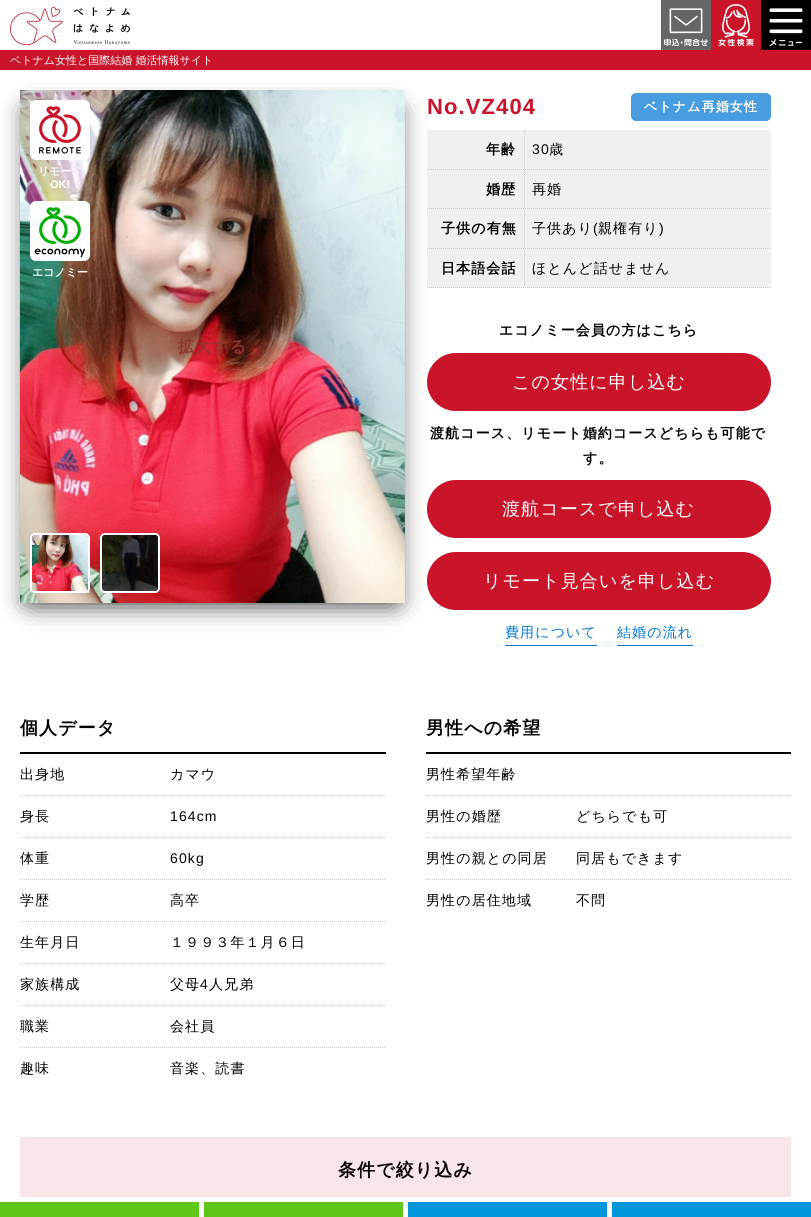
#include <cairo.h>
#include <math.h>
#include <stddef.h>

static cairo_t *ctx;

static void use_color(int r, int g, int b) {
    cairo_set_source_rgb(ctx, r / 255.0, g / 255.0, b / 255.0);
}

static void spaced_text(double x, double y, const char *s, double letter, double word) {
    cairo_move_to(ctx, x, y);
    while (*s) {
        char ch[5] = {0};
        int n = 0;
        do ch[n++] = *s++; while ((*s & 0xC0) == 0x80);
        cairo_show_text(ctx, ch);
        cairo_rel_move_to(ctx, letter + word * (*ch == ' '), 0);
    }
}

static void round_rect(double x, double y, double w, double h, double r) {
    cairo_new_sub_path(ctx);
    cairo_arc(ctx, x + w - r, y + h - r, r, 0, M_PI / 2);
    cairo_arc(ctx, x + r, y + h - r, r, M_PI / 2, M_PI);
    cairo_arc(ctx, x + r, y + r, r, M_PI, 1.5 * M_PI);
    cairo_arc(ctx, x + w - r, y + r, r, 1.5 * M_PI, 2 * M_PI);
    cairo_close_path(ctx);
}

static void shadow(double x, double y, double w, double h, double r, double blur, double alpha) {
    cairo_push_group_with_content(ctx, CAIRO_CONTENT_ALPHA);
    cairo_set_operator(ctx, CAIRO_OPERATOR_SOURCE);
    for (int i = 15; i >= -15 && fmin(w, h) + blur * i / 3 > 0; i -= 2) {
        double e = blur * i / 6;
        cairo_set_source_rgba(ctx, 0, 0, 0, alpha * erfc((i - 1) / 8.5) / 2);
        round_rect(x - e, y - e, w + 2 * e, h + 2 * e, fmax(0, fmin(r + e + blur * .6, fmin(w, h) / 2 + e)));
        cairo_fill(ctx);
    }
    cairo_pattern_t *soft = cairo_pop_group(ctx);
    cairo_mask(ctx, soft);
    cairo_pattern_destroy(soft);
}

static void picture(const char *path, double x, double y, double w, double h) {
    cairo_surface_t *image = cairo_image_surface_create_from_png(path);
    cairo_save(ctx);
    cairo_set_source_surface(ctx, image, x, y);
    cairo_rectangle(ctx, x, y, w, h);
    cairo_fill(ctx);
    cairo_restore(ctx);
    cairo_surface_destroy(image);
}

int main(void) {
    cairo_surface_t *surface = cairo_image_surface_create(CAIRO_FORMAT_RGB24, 811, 1217);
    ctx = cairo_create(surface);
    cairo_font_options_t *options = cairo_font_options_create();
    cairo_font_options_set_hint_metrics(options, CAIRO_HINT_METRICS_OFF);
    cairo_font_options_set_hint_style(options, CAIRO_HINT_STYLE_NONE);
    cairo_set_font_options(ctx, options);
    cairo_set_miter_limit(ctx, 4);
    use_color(255, 255, 255);
    cairo_paint(ctx);
    use_color(102, 102, 102);
    cairo_rectangle(ctx, 661, 0, 50, 50);
    cairo_fill(ctx);
    picture("img1.png", 664, 8, 44, 38);
    use_color(201, 20, 42);
    cairo_rectangle(ctx, 711, 0, 50, 50);
    cairo_fill(ctx);
    picture("img2.png", 718, 4, 36, 42);
    use_color(0, 0, 0);
    cairo_rectangle(ctx, 761, 0, 50, 50);
    cairo_fill(ctx);
    picture("img3.png", 769, 8, 34, 38);
    picture("img4.png", 10, 7, 120, 38);
    use_color(201, 20, 42);
    cairo_rectangle(ctx, 0, 50, 811, 20);
    cairo_fill(ctx);
    cairo_select_font_face(ctx, "WenQuanYi Zen Hei Medium", CAIRO_FONT_SLANT_NORMAL, CAIRO_FONT_WEIGHT_NORMAL);
    cairo_set_font_size(ctx, 11);
    use_color(255, 255, 255);
    cairo_move_to(ctx, 10, 64);
    cairo_show_text(ctx, "ベトナム女性と国際結婚 婚活情報サイト");
    use_color(0, 0, 0);
    shadow(25, 110, 365, 493, 0, 12.5, 0.5);
    shadow(35, 110, 365, 493, 0, 12.5, 0.5);
    picture("img7.png", 20, 90, 385, 513);
    picture("img5.png", 30, 100, 60, 60);
    cairo_select_font_face(ctx, "WenQuanYi Zen Hei", CAIRO_FONT_SLANT_NORMAL, CAIRO_FONT_WEIGHT_BOLD);
    use_color(255, 255, 255);
    cairo_move_to(ctx, 38, 175);
    cairo_show_text(ctx, "リモー");
    cairo_select_font_face(ctx, "Liberation Sans", CAIRO_FONT_SLANT_NORMAL, CAIRO_FONT_WEIGHT_BOLD);
    cairo_move_to(ctx, 50, 188);
    cairo_show_text(ctx, "OK!");
    picture("img6.png", 30, 201, 60, 60);
    cairo_select_font_face(ctx, "WenQuanYi Zen Hei", CAIRO_FONT_SLANT_NORMAL, CAIRO_FONT_WEIGHT_BOLD);
    cairo_move_to(ctx, 32, 276);
    cairo_show_text(ctx, "エコノミー");
    cairo_set_font_size(ctx, 16);
    use_color(149, 52, 46);
    spaced_text(178, 352, "拡大する", 1.1, 0);
    round_rect(31, 534, 58, 58, 4);
    use_color(255, 255, 255);
    cairo_stroke(ctx);
    picture("img8.png", 32, 535, 56, 56);
    round_rect(101, 534, 58, 58, 4);
    cairo_stroke(ctx);
    picture("img9.png", 102, 535, 56, 56);
    cairo_set_source_rgba(ctx, 0, 0, 0, 0.7);
    round_rect(102, 535, 56, 56, 3);
    cairo_fill(ctx);
    cairo_select_font_face(ctx, "Liberation Sans", CAIRO_FONT_SLANT_NORMAL, CAIRO_FONT_WEIGHT_BOLD);
    cairo_set_font_size(ctx, 22);
    use_color(201, 20, 42);
    spaced_text(427, 114, "No.VZ404", 1.1, 0);
    use_color(71, 157, 224);
    round_rect(631, 93, 140, 28, 5);
    cairo_fill(ctx);
    cairo_select_font_face(ctx, "WenQuanYi Zen Hei", CAIRO_FONT_SLANT_NORMAL, CAIRO_FONT_WEIGHT_BOLD);
    cairo_set_font_size(ctx, 13);
    use_color(255, 255, 255);
    spaced_text(644, 111, "ベトナム再婚女性", 1.1, 0);
    use_color(240, 240, 240);
    cairo_rectangle(ctx, 427, 130, 344, 158);
    cairo_fill(ctx);
    cairo_new_path(ctx);
    cairo_move_to(ctx, 427, 169.5);
    cairo_line_to(ctx, 771, 169.5);
    use_color(204, 204, 204);
    cairo_set_line_width(ctx, 1);
    cairo_set_dash(ctx, (double[]){1, 1}, 2, 0);
    cairo_stroke(ctx);
    cairo_new_path(ctx);
    cairo_move_to(ctx, 524.5, 130);
    cairo_line_to(ctx, 524.5, 169);
    cairo_stroke(ctx);
    cairo_set_font_size(ctx, 14);
    use_color(0, 0, 0);
    spaced_text(486, 154, "年齢", 1.1, 0);
    cairo_select_font_face(ctx, "Liberation Sans", CAIRO_FONT_SLANT_NORMAL, CAIRO_FONT_WEIGHT_NORMAL);
    spaced_text(532, 154, "30", 1.1, 0);
    cairo_select_font_face(ctx, "WenQuanYi Zen Hei Medium", CAIRO_FONT_SLANT_NORMAL, CAIRO_FONT_WEIGHT_NORMAL);
    spaced_text(549, 154, "歳", 1.1, 0);
    cairo_new_path(ctx);
    cairo_move_to(ctx, 427, 208.5);
    cairo_line_to(ctx, 771, 208.5);
    use_color(204, 204, 204);
    cairo_stroke(ctx);
    cairo_new_path(ctx);
    cairo_move_to(ctx, 524.5, 170);
    cairo_line_to(ctx, 524.5, 208);
    cairo_stroke(ctx);
    cairo_select_font_face(ctx, "WenQuanYi Zen Hei", CAIRO_FONT_SLANT_NORMAL, CAIRO_FONT_WEIGHT_BOLD);
    use_color(0, 0, 0);
    spaced_text(486, 194, "婚歴", 1.1, 0);
    cairo_select_font_face(ctx, "WenQuanYi Zen Hei Medium", CAIRO_FONT_SLANT_NORMAL, CAIRO_FONT_WEIGHT_NORMAL);
    spaced_text(532, 194, "再婚", 1.1, 0);
    cairo_new_path(ctx);
    cairo_move_to(ctx, 427, 248.5);
    cairo_line_to(ctx, 771, 248.5);
    use_color(204, 204, 204);
    cairo_stroke(ctx);
    cairo_new_path(ctx);
    cairo_move_to(ctx, 524.5, 209);
    cairo_line_to(ctx, 524.5, 248);
    cairo_stroke(ctx);
    cairo_select_font_face(ctx, "WenQuanYi Zen Hei", CAIRO_FONT_SLANT_NORMAL, CAIRO_FONT_WEIGHT_BOLD);
    use_color(0, 0, 0);
    spaced_text(441, 233, "子供の有無", 1.1, 0);
    cairo_select_font_face(ctx, "WenQuanYi Zen Hei Medium", CAIRO_FONT_SLANT_NORMAL, CAIRO_FONT_WEIGHT_NORMAL);
    spaced_text(532, 233, "子供あり", 1.1, 0);
    cairo_select_font_face(ctx, "Liberation Sans", CAIRO_FONT_SLANT_NORMAL, CAIRO_FONT_WEIGHT_NORMAL);
    spaced_text(593, 233, "(", 1.1, 0);
    cairo_select_font_face(ctx, "WenQuanYi Zen Hei Medium", CAIRO_FONT_SLANT_NORMAL, CAIRO_FONT_WEIGHT_NORMAL);
    spaced_text(598, 233, "親権有り", 1.1, 0);
    cairo_select_font_face(ctx, "Liberation Sans", CAIRO_FONT_SLANT_NORMAL, CAIRO_FONT_WEIGHT_NORMAL);
    spaced_text(659, 233, ")", 1.1, 0);
    cairo_new_path(ctx);
    cairo_move_to(ctx, 427, 287.5);
    cairo_line_to(ctx, 771, 287.5);
    use_color(204, 204, 204);
    cairo_stroke(ctx);
    cairo_new_path(ctx);
    cairo_move_to(ctx, 524.5, 249);
    cairo_line_to(ctx, 524.5, 287);
    cairo_stroke(ctx);
    cairo_select_font_face(ctx, "WenQuanYi Zen Hei", CAIRO_FONT_SLANT_NORMAL, CAIRO_FONT_WEIGHT_BOLD);
    use_color(0, 0, 0);
    spaced_text(441, 273, "日本語会話", 1.1, 0);
    cairo_select_font_face(ctx, "WenQuanYi Zen Hei Medium", CAIRO_FONT_SLANT_NORMAL, CAIRO_FONT_WEIGHT_NORMAL);
    spaced_text(532, 273, "ほとんど話せません", 1.1, 0);
    cairo_select_font_face(ctx, "WenQuanYi Zen Hei", CAIRO_FONT_SLANT_NORMAL, CAIRO_FONT_WEIGHT_BOLD);
    spaced_text(499, 335, "エコノミー会員の方はこちら", 1.1, 0);
    use_color(201, 20, 42);
    round_rect(428, 354, 342, 56, 28);
    cairo_fill_preserve(ctx);
    cairo_set_line_width(ctx, 2);
    cairo_set_dash(ctx, NULL, 0, 0);
    cairo_stroke(ctx);
    cairo_select_font_face(ctx, "WenQuanYi Zen Hei Medium", CAIRO_FONT_SLANT_NORMAL, CAIRO_FONT_WEIGHT_NORMAL);
    cairo_set_font_size(ctx, 18);
    use_color(255, 255, 255);
    spaced_text(512, 388, "この女性に申し込む", 1.1, 0);
    cairo_select_font_face(ctx, "WenQuanYi Zen Hei", CAIRO_FONT_SLANT_NORMAL, CAIRO_FONT_WEIGHT_BOLD);
    cairo_set_font_size(ctx, 14);
    use_color(0, 0, 0);
    spaced_text(430, 438, "渡航コース、リモート婚約コースどちらも可能で", 1.1, 0);
    spaced_text(583, 463, "す。", 1.1, 0);
    use_color(201, 20, 42);
    round_rect(428, 481, 342, 56, 28);
    cairo_fill_preserve(ctx);
    cairo_stroke(ctx);
    cairo_select_font_face(ctx, "WenQuanYi Zen Hei Medium", CAIRO_FONT_SLANT_NORMAL, CAIRO_FONT_WEIGHT_NORMAL);
    cairo_set_font_size(ctx, 18);
    use_color(255, 255, 255);
    spaced_text(502, 515, "渡航コースで申し込む", 1.1, 0);
    use_color(201, 20, 42);
    round_rect(428, 553, 342, 56, 28);
    cairo_fill_preserve(ctx);
    cairo_stroke(ctx);
    use_color(255, 255, 255);
    spaced_text(483, 587, "リモート見合いを申し込む", 1.1, 0);
    cairo_set_font_size(ctx, 14);
    use_color(0, 118, 209);
    spaced_text(505, 637, "費用について", 1.1, 0);
    cairo_rectangle(ctx, 505, 645, 92, 1);
    cairo_fill(ctx);
    spaced_text(617, 637, "結婚の流れ", 1.1, 0);
    cairo_rectangle(ctx, 617, 645, 76, 1);
    cairo_fill(ctx);
    use_color(0, 0, 0);
    cairo_rectangle(ctx, 20, 752, 366, 2);
    cairo_fill(ctx);
    cairo_select_font_face(ctx, "WenQuanYi Zen Hei", CAIRO_FONT_SLANT_NORMAL, CAIRO_FONT_WEIGHT_BOLD);
    cairo_set_font_size(ctx, 18);
    spaced_text(20, 734, "個人データ", 1.1, 0);
    cairo_select_font_face(ctx, "WenQuanYi Zen Hei Medium", CAIRO_FONT_SLANT_NORMAL, CAIRO_FONT_WEIGHT_NORMAL);
    cairo_set_font_size(ctx, 14);
    spaced_text(20, 779, "出身地", 1.1, 0);
    spaced_text(170, 779, "カマウ", 1.1, 0);
    cairo_new_path(ctx);
    cairo_move_to(ctx, 20, 795.5);
    cairo_line_to(ctx, 386, 795.5);
    use_color(204, 204, 204);
    cairo_set_line_width(ctx, 1);
    cairo_set_dash(ctx, (double[]){1, 1}, 2, 0);
    cairo_stroke(ctx);
    use_color(0, 0, 0);
    spaced_text(20, 821, "身長", 1.1, 0);
    cairo_select_font_face(ctx, "Liberation Sans", CAIRO_FONT_SLANT_NORMAL, CAIRO_FONT_WEIGHT_NORMAL);
    spaced_text(170, 821, "164cm", 1.1, 0);
    cairo_new_path(ctx);
    cairo_move_to(ctx, 20, 837.5);
    cairo_line_to(ctx, 386, 837.5);
    use_color(204, 204, 204);
    cairo_stroke(ctx);
    cairo_select_font_face(ctx, "WenQuanYi Zen Hei Medium", CAIRO_FONT_SLANT_NORMAL, CAIRO_FONT_WEIGHT_NORMAL);
    use_color(0, 0, 0);
    spaced_text(20, 863, "体重", 1.1, 0);
    cairo_select_font_face(ctx, "Liberation Sans", CAIRO_FONT_SLANT_NORMAL, CAIRO_FONT_WEIGHT_NORMAL);
    spaced_text(170, 863, "60kg", 1.1, 0);
    cairo_new_path(ctx);
    cairo_move_to(ctx, 20, 879.5);
    cairo_line_to(ctx, 386, 879.5);
    use_color(204, 204, 204);
    cairo_stroke(ctx);
    cairo_select_font_face(ctx, "WenQuanYi Zen Hei Medium", CAIRO_FONT_SLANT_NORMAL, CAIRO_FONT_WEIGHT_NORMAL);
    use_color(0, 0, 0);
    spaced_text(20, 905, "学歴", 1.1, 0);
    spaced_text(170, 905, "高卒", 1.1, 0);
    cairo_new_path(ctx);
    cairo_move_to(ctx, 20, 921.5);
    cairo_line_to(ctx, 386, 921.5);
    use_color(204, 204, 204);
    cairo_stroke(ctx);
    use_color(0, 0, 0);
    spaced_text(20, 947, "生年月日", 1.1, 0);
    spaced_text(170, 947, "１９９３年１月６日", 1.1, 0);
    cairo_new_path(ctx);
    cairo_move_to(ctx, 20, 963.5);
    cairo_line_to(ctx, 386, 963.5);
    use_color(204, 204, 204);
    cairo_stroke(ctx);
    use_color(0, 0, 0);
    spaced_text(20, 989, "家族構成", 1.1, 0);
    spaced_text(170, 989, "父母", 1.1, 0);
    cairo_select_font_face(ctx, "Liberation Sans", CAIRO_FONT_SLANT_NORMAL, CAIRO_FONT_WEIGHT_NORMAL);
    spaced_text(200, 989, "4", 1.1, 0);
    cairo_select_font_face(ctx, "WenQuanYi Zen Hei Medium", CAIRO_FONT_SLANT_NORMAL, CAIRO_FONT_WEIGHT_NORMAL);
    spaced_text(209, 989, "人兄弟", 1.1, 0);
    cairo_new_path(ctx);
    cairo_move_to(ctx, 20, 1005.5);
    cairo_line_to(ctx, 386, 1005.5);
    use_color(204, 204, 204);
    cairo_stroke(ctx);
    use_color(0, 0, 0);
    spaced_text(20, 1031, "職業", 1.1, 0);
    spaced_text(170, 1031, "会社員", 1.1, 0);
    cairo_new_path(ctx);
    cairo_move_to(ctx, 20, 1047.5);
    cairo_line_to(ctx, 386, 1047.5);
    use_color(204, 204, 204);
    cairo_stroke(ctx);
    use_color(0, 0, 0);
    spaced_text(20, 1073, "趣味", 1.1, 0);
    spaced_text(170, 1073, "音楽、読書", 1.1, 0);
    cairo_rectangle(ctx, 426, 752, 365, 2);
    cairo_fill(ctx);
    cairo_select_font_face(ctx, "WenQuanYi Zen Hei", CAIRO_FONT_SLANT_NORMAL, CAIRO_FONT_WEIGHT_BOLD);
    cairo_set_font_size(ctx, 18);
    spaced_text(426, 734, "男性への希望", 1.1, 0);
    cairo_select_font_face(ctx, "WenQuanYi Zen Hei Medium", CAIRO_FONT_SLANT_NORMAL, CAIRO_FONT_WEIGHT_NORMAL);
    cairo_set_font_size(ctx, 14);
    spaced_text(426, 779, "男性希望年齢", 1.1, 0);
    cairo_new_path(ctx);
    cairo_move_to(ctx, 426, 795.5);
    cairo_line_to(ctx, 791, 795.5);
    use_color(204, 204, 204);
    cairo_stroke(ctx);
    use_color(0, 0, 0);
    spaced_text(426, 821, "男性の婚歴", 1.1, 0);
    spaced_text(576, 821, "どちらでも可", 1.1, 0);
    cairo_new_path(ctx);
    cairo_move_to(ctx, 426, 837.5);
    cairo_line_to(ctx, 791, 837.5);
    use_color(204, 204, 204);
    cairo_stroke(ctx);
    use_color(0, 0, 0);
    spaced_text(426, 863, "男性の親との同居", 1.1, 0);
    spaced_text(576, 863, "同居もできます", 1.1, 0);
    cairo_new_path(ctx);
    cairo_move_to(ctx, 426, 879.5);
    cairo_line_to(ctx, 791, 879.5);
    use_color(204, 204, 204);
    cairo_stroke(ctx);
    use_color(0, 0, 0);
    spaced_text(426, 905, "男性の居住地域", 1.1, 0);
    spaced_text(576, 905, "不問", 1.1, 0);
    use_color(248, 229, 231);
    cairo_rectangle(ctx, 20, 1137, 771, 60);
    cairo_fill(ctx);
    cairo_select_font_face(ctx, "WenQuanYi Zen Hei", CAIRO_FONT_SLANT_NORMAL, CAIRO_FONT_WEIGHT_BOLD);
    cairo_set_font_size(ctx, 18);
    use_color(0, 0, 0);
    spaced_text(338, 1176, "条件で絞り込み", 1.1, 0);
    use_color(94, 198, 24);
    cairo_rectangle(ctx, 0, 1202, 199, 15);
    cairo_fill(ctx);
    cairo_rectangle(ctx, 204, 1202, 199, 15);
    cairo_fill(ctx);
    use_color(0, 150, 218);
    cairo_rectangle(ctx, 408, 1202, 199, 15);
    cairo_fill(ctx);
    cairo_rectangle(ctx, 612, 1202, 199, 15);
    cairo_fill(ctx);
    cairo_surface_write_to_png(surface, "result.png");
    cairo_font_options_destroy(options);
    cairo_destroy(ctx);
    cairo_surface_destroy(surface);
    return 0;
}
